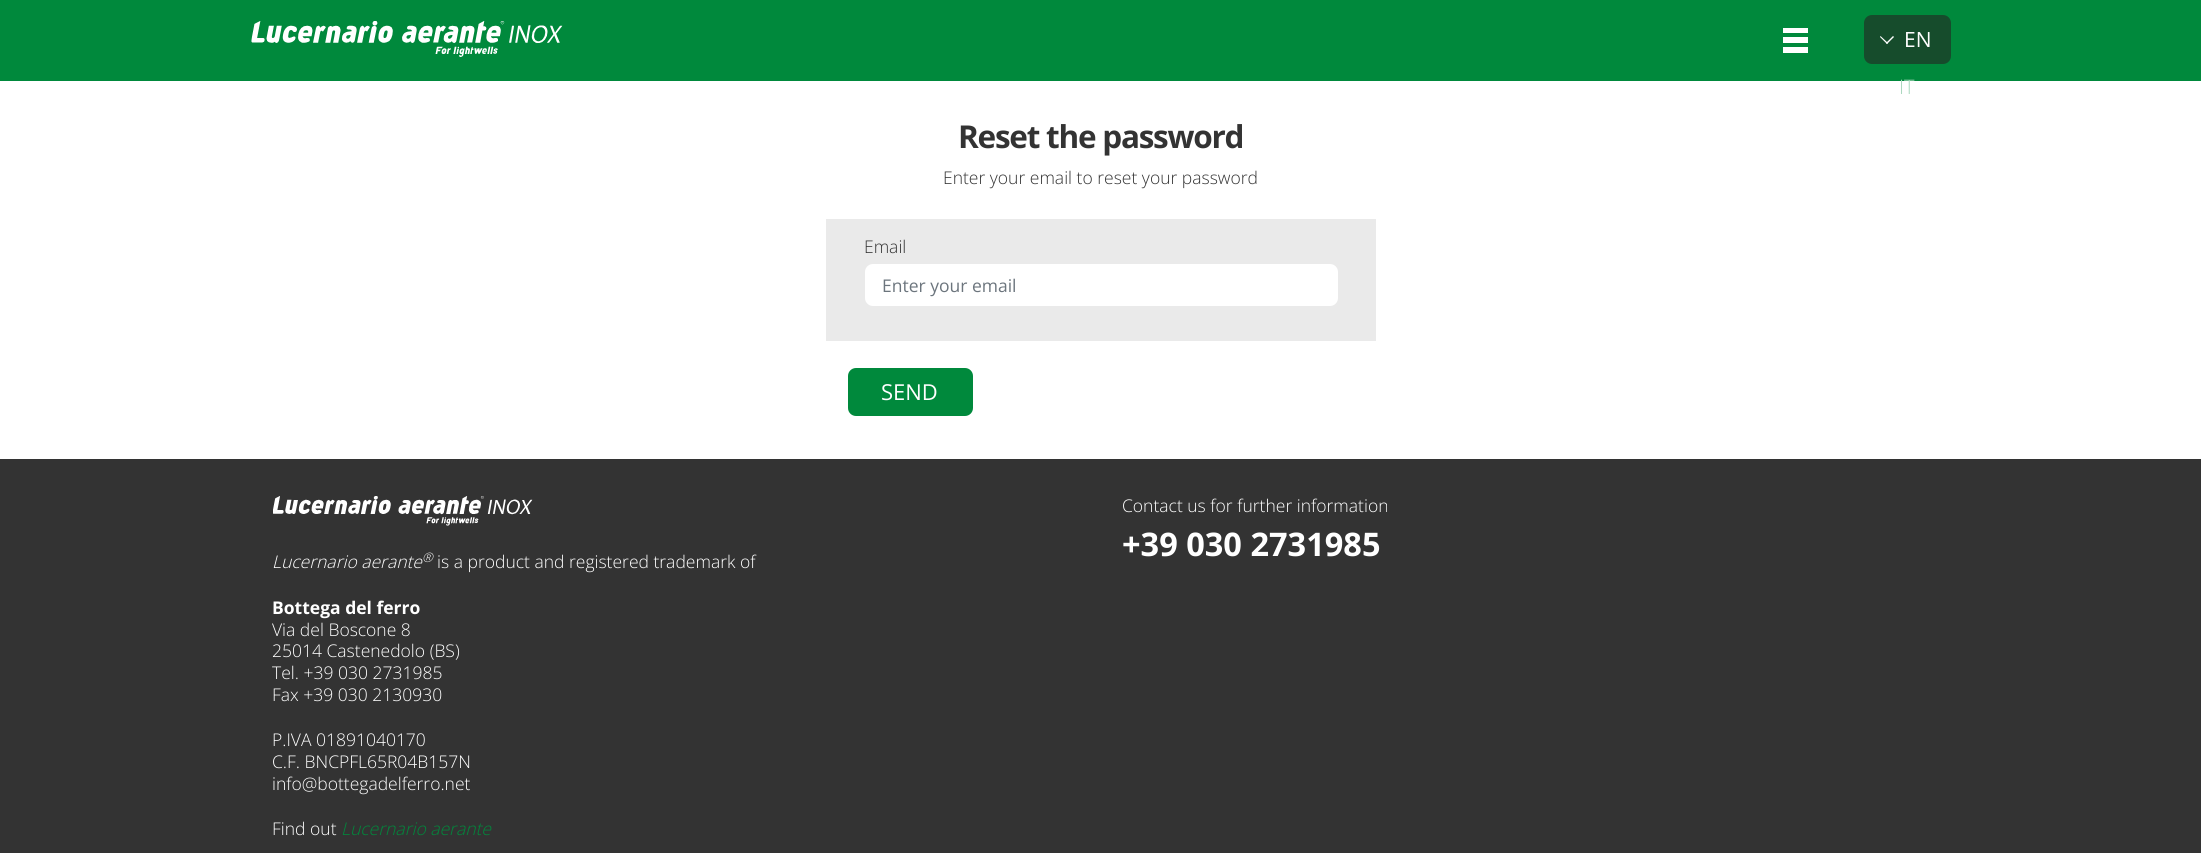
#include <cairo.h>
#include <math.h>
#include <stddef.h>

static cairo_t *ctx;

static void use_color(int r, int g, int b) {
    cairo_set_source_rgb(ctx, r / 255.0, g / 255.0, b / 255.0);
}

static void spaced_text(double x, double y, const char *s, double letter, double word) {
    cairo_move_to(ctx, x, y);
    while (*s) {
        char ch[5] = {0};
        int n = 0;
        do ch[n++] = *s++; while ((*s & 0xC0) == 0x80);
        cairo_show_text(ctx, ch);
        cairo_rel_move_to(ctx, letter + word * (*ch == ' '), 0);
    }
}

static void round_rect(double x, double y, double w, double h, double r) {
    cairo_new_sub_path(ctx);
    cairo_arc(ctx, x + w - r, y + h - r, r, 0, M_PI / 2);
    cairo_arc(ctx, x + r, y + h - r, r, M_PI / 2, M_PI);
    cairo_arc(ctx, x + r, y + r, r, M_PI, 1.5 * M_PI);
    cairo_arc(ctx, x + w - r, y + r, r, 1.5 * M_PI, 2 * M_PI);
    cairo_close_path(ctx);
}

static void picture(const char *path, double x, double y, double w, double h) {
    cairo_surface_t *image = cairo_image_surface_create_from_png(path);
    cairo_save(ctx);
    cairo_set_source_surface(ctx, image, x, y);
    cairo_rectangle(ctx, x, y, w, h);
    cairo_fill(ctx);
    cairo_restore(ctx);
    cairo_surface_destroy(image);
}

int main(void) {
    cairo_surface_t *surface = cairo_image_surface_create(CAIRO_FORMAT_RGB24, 2201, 853);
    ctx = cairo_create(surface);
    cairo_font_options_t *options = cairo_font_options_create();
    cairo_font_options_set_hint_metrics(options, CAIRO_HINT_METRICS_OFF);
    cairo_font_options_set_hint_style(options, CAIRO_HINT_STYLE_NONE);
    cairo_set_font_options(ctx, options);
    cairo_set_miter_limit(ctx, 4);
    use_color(255, 255, 255);
    cairo_paint(ctx);
    use_color(0, 137, 60);
    cairo_rectangle(ctx, 0, 0, 2201, 81);
    cairo_fill(ctx);
    picture("img1.png", 251, 21, 312, 36);
    use_color(255, 255, 255);
    cairo_rectangle(ctx, 1783, 28, 25, 5);
    cairo_fill(ctx);
    cairo_rectangle(ctx, 1783, 47, 25, 6);
    cairo_fill(ctx);
    cairo_rectangle(ctx, 1783, 37, 25, 6);
    cairo_fill(ctx);
    use_color(22, 76, 44);
    round_rect(1864, 15, 87, 49, 8);
    cairo_fill(ctx);
    use_color(255, 255, 255);
    cairo_new_path(ctx);
    cairo_move_to(ctx, 1893, 36);
    cairo_line_to(ctx, 1894, 37);
    cairo_line_to(ctx, 1887, 44);
    cairo_line_to(ctx, 1886, 43);
    cairo_close_path(ctx);
    cairo_fill(ctx);
    cairo_new_path(ctx);
    cairo_move_to(ctx, 1880.5, 36);
    cairo_line_to(ctx, 1888, 43);
    cairo_line_to(ctx, 1887, 44);
    cairo_line_to(ctx, 1880, 37);
    cairo_close_path(ctx);
    cairo_fill(ctx);
    cairo_select_font_face(ctx, "Open Sans", CAIRO_FONT_SLANT_NORMAL, CAIRO_FONT_WEIGHT_NORMAL);
    cairo_set_font_size(ctx, 21);
    cairo_move_to(ctx, 1904, 47);
    cairo_show_text(ctx, "EN");
    cairo_select_font_face(ctx, "Open Sans Light", CAIRO_FONT_SLANT_NORMAL, CAIRO_FONT_WEIGHT_NORMAL);
    cairo_set_font_size(ctx, 20);
    use_color(170, 216, 190);
    cairo_move_to(ctx, 1899, 94);
    cairo_show_text(ctx, "IT");
    cairo_select_font_face(ctx, "Open Sans", CAIRO_FONT_SLANT_NORMAL, CAIRO_FONT_WEIGHT_BOLD);
    cairo_set_font_size(ctx, 31.5);
    use_color(51, 51, 51);
    spaced_text(958, 148, "Reset the password", -1.25, 0);
    cairo_select_font_face(ctx, "Open Sans Light", CAIRO_FONT_SLANT_NORMAL, CAIRO_FONT_WEIGHT_NORMAL);
    cairo_set_font_size(ctx, 17.5);
    cairo_move_to(ctx, 943, 184);
    cairo_show_text(ctx, "Enter your email to reset your password");
    use_color(234, 234, 234);
    cairo_rectangle(ctx, 826, 219, 550, 122);
    cairo_fill(ctx);
    use_color(51, 51, 51);
    cairo_move_to(ctx, 864, 253);
    cairo_show_text(ctx, "Email");
    use_color(255, 255, 255);
    round_rect(865, 264, 473, 42, 8);
    cairo_fill(ctx);
    cairo_select_font_face(ctx, "Open Sans", CAIRO_FONT_SLANT_NORMAL, CAIRO_FONT_WEIGHT_NORMAL);
    use_color(108, 117, 125);
    cairo_move_to(ctx, 882, 292);
    cairo_show_text(ctx, "Enter your email");
    use_color(0, 137, 60);
    round_rect(848, 368, 125, 48, 8);
    cairo_fill(ctx);
    cairo_set_font_size(ctx, 22);
    use_color(255, 255, 255);
    cairo_move_to(ctx, 881, 400);
    cairo_show_text(ctx, "SEND");
    use_color(51, 51, 51);
    cairo_rectangle(ctx, 0, 459, 2201, 394);
    cairo_fill(ctx);
    cairo_select_font_face(ctx, "Open Sans Light", CAIRO_FONT_SLANT_NORMAL, CAIRO_FONT_WEIGHT_NORMAL);
    cairo_set_font_size(ctx, 17.5);
    use_color(255, 255, 255);
    cairo_move_to(ctx, 1122, 512);
    cairo_show_text(ctx, "Contact us for further information");
    cairo_select_font_face(ctx, "Open Sans", CAIRO_FONT_SLANT_NORMAL, CAIRO_FONT_WEIGHT_BOLD);
    cairo_set_font_size(ctx, 32.5);
    cairo_move_to(ctx, 1122, 556);
    cairo_show_text(ctx, "+39 030 2731985");
    picture("img2.png", 273, 496, 260, 30);
    cairo_select_font_face(ctx, "Open Sans Light", CAIRO_FONT_SLANT_ITALIC, CAIRO_FONT_WEIGHT_NORMAL);
    cairo_set_font_size(ctx, 17.5);
    cairo_move_to(ctx, 272, 568);
    cairo_show_text(ctx, "Lucernario aerante");
    cairo_set_font_size(ctx, 13);
    cairo_move_to(ctx, 422, 562);
    cairo_show_text(ctx, "®");
    cairo_select_font_face(ctx, "Open Sans Light", CAIRO_FONT_SLANT_NORMAL, CAIRO_FONT_WEIGHT_NORMAL);
    cairo_set_font_size(ctx, 17.5);
    cairo_move_to(ctx, 437, 568);
    cairo_show_text(ctx, "is a product and registered trademark of");
    cairo_select_font_face(ctx, "Open Sans", CAIRO_FONT_SLANT_NORMAL, CAIRO_FONT_WEIGHT_BOLD);
    cairo_move_to(ctx, 272, 614);
    cairo_show_text(ctx, "Bottega del ferro");
    cairo_select_font_face(ctx, "Open Sans Light", CAIRO_FONT_SLANT_NORMAL, CAIRO_FONT_WEIGHT_NORMAL);
    cairo_move_to(ctx, 272, 636);
    cairo_show_text(ctx, "Via del Boscone 8");
    cairo_move_to(ctx, 272, 657);
    cairo_show_text(ctx, "25014 Castenedolo (BS)");
    cairo_move_to(ctx, 272, 679);
    cairo_show_text(ctx, "Tel. +39 030 2731985");
    cairo_move_to(ctx, 272, 701);
    cairo_show_text(ctx, "Fax +39 030 2130930");
    cairo_move_to(ctx, 272, 746);
    cairo_show_text(ctx, "P.IVA 01891040170");
    cairo_move_to(ctx, 272, 768);
    cairo_show_text(ctx, "C.F. BNCPFL65R04B157N");
    cairo_move_to(ctx, 272, 790);
    cairo_show_text(ctx, "info@bottegadelferro.net");
    cairo_move_to(ctx, 272, 835);
    cairo_show_text(ctx, "Find out");
    cairo_select_font_face(ctx, "Open Sans Light", CAIRO_FONT_SLANT_ITALIC, CAIRO_FONT_WEIGHT_NORMAL);
    use_color(0, 137, 60);
    cairo_move_to(ctx, 341, 835);
    cairo_show_text(ctx, "Lucernario aerante");
    cairo_surface_write_to_png(surface, "result.png");
    cairo_font_options_destroy(options);
    cairo_destroy(ctx);
    cairo_surface_destroy(surface);
    return 0;
}
